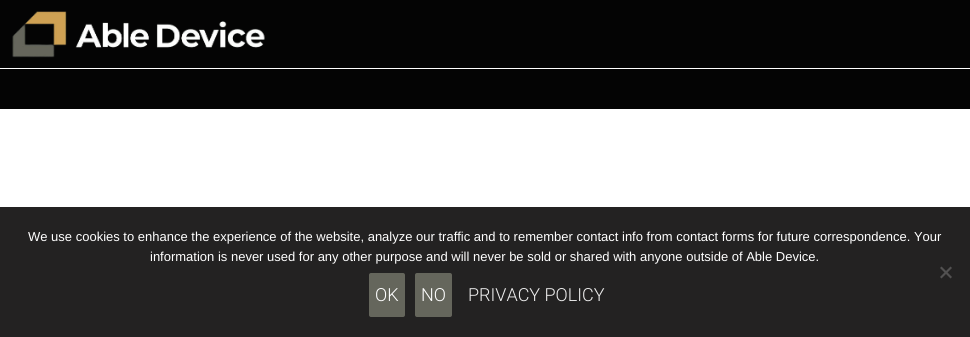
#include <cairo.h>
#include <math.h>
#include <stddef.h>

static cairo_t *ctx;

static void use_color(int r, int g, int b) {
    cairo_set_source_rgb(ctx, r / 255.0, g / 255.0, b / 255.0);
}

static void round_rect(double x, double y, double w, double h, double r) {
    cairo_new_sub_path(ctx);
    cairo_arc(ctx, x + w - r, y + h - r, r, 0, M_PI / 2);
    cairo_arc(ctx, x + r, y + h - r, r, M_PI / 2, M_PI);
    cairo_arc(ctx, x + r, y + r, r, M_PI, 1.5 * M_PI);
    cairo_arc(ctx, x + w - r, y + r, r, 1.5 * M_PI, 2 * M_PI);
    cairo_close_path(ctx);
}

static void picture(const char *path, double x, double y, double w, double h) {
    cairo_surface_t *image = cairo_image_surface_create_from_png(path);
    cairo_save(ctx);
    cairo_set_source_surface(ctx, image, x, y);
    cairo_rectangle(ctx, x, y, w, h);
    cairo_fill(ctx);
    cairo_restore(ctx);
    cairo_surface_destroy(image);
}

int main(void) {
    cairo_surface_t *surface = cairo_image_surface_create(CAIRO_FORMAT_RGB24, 970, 337);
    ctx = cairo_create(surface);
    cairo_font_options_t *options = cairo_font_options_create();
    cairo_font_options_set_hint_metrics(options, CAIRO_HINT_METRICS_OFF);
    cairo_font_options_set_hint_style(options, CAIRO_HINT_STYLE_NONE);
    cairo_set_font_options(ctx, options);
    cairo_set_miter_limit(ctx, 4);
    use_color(4, 4, 4);
    cairo_paint(ctx);
    picture("img1.png", 12, 11, 253, 47);
    use_color(255, 255, 255);
    cairo_rectangle(ctx, 0, 68, 970, 1);
    cairo_fill(ctx);
    cairo_rectangle(ctx, 0, 109, 970, 98);
    cairo_fill(ctx);
    use_color(35, 34, 34);
    cairo_rectangle(ctx, 0, 207, 970, 130);
    cairo_fill(ctx);
    cairo_select_font_face(ctx, "Liberation Sans", CAIRO_FONT_SLANT_NORMAL, CAIRO_FONT_WEIGHT_NORMAL);
    cairo_set_font_size(ctx, 13);
    use_color(255, 255, 255);
    cairo_move_to(ctx, 28, 241);
    cairo_show_text(ctx, "We use cookies to enhance the experience of the website, analyze our traffic and to remember contact info from contact forms for future correspondence. Your");
    cairo_move_to(ctx, 150, 261);
    cairo_show_text(ctx, "information is never used for any other purpose and will never be sold or shared with anyone outside of Able Device.");
    use_color(82, 81, 81);
    cairo_new_path(ctx);
    cairo_move_to(ctx, 950.5, 266.5);
    cairo_line_to(ctx, 952, 268);
    cairo_line_to(ctx, 941.5, 278.5);
    cairo_line_to(ctx, 940, 277);
    cairo_close_path(ctx);
    cairo_fill(ctx);
    cairo_new_path(ctx);
    cairo_move_to(ctx, 940, 268);
    cairo_line_to(ctx, 941.5, 266.5);
    cairo_line_to(ctx, 952, 277);
    cairo_line_to(ctx, 950.5, 278.5);
    cairo_close_path(ctx);
    cairo_fill(ctx);
    use_color(101, 102, 92);
    round_rect(369, 273, 36, 44, 2);
    cairo_fill(ctx);
    cairo_select_font_face(ctx, "Roboto Light", CAIRO_FONT_SLANT_NORMAL, CAIRO_FONT_WEIGHT_NORMAL);
    cairo_set_font_size(ctx, 18);
    use_color(255, 255, 255);
    cairo_move_to(ctx, 375, 301);
    cairo_show_text(ctx, "OK");
    use_color(101, 102, 92);
    round_rect(415, 273, 37, 44, 2);
    cairo_fill(ctx);
    use_color(255, 255, 255);
    cairo_move_to(ctx, 421, 301);
    cairo_show_text(ctx, "NO");
    use_color(238, 238, 238);
    cairo_move_to(ctx, 468, 301);
    cairo_show_text(ctx, "PRIVACY POLICY");
    cairo_surface_write_to_png(surface, "result.png");
    cairo_font_options_destroy(options);
    cairo_destroy(ctx);
    cairo_surface_destroy(surface);
    return 0;
}
